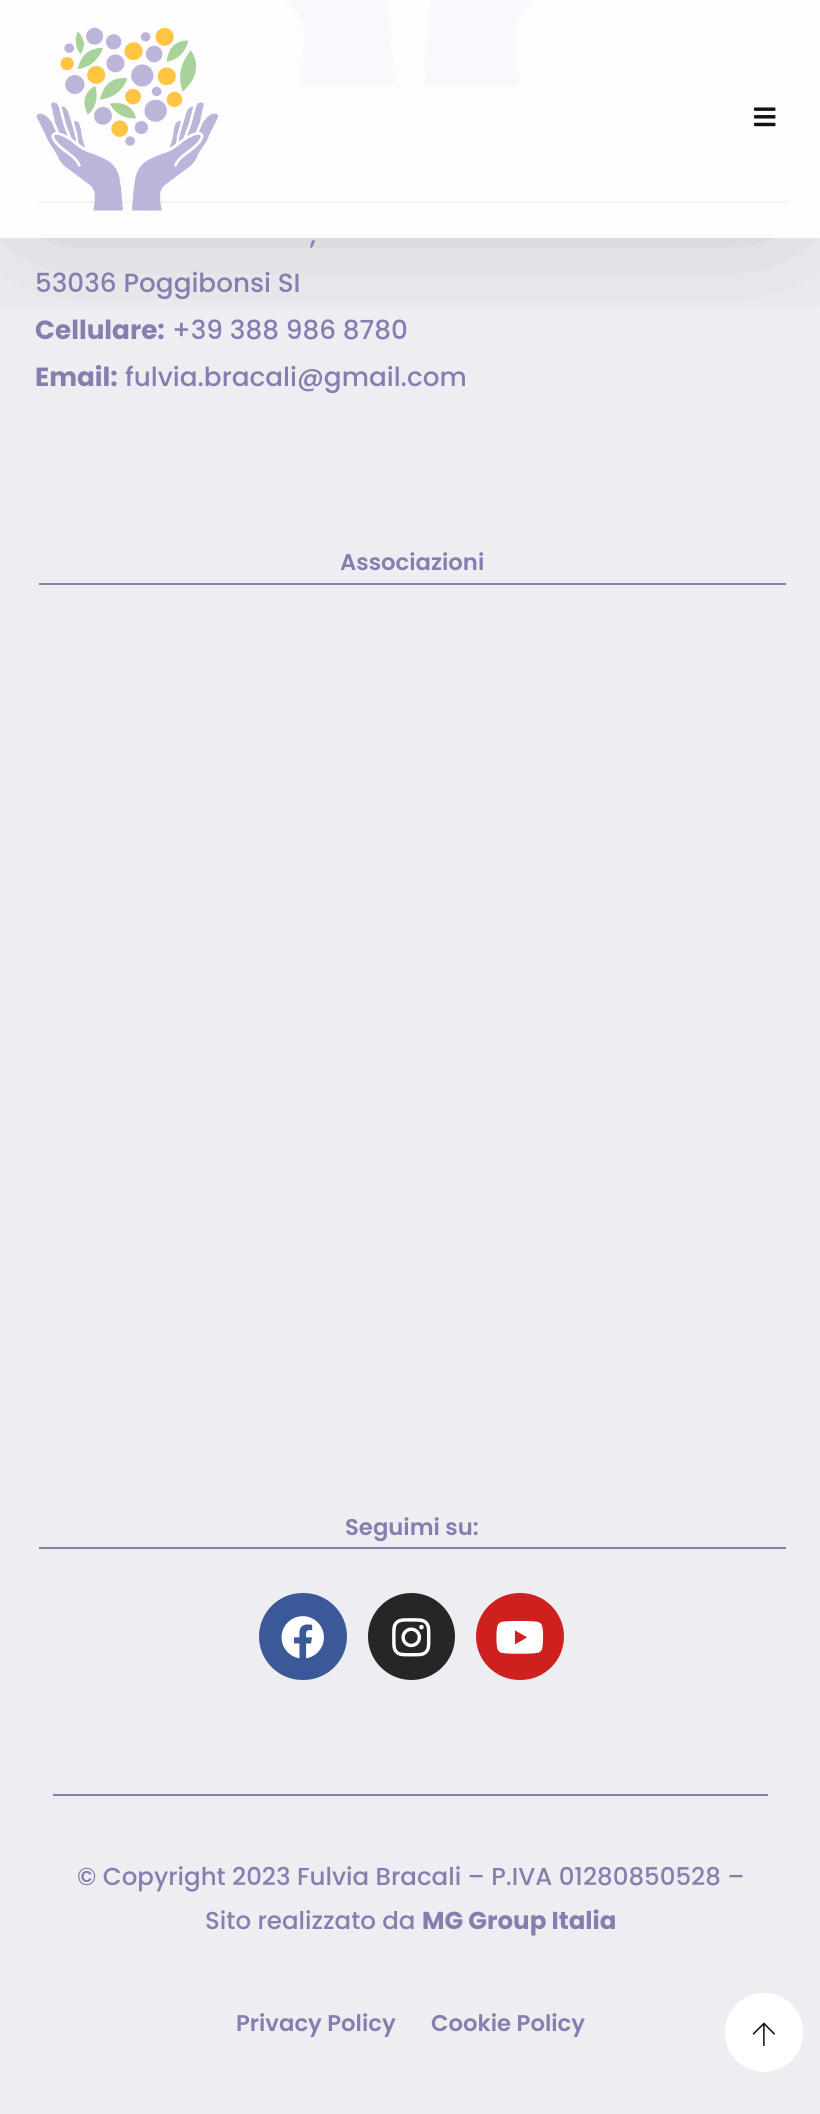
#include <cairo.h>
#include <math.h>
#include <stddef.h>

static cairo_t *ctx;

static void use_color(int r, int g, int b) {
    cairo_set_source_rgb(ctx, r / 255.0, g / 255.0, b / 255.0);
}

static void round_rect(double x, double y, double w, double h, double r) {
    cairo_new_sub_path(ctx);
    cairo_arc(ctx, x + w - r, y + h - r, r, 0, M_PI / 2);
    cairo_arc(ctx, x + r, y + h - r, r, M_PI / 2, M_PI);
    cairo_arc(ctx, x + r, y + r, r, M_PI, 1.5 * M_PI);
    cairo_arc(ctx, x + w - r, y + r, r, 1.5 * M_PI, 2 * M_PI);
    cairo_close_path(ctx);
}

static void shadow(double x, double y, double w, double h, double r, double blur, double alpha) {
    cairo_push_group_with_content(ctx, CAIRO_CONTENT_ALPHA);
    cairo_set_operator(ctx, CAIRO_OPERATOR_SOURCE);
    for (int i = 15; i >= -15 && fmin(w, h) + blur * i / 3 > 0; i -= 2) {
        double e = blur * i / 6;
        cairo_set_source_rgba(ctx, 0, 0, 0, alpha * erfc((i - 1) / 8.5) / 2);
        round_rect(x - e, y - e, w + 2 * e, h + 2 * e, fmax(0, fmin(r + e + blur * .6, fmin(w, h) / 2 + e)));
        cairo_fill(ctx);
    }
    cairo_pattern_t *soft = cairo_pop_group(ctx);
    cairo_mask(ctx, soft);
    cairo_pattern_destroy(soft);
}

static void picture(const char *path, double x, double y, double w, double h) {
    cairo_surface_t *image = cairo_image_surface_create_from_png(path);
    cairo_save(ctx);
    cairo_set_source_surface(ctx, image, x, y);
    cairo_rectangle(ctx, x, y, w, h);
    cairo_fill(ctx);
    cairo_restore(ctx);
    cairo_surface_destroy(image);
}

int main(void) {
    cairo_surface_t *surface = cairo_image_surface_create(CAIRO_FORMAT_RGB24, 820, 2114);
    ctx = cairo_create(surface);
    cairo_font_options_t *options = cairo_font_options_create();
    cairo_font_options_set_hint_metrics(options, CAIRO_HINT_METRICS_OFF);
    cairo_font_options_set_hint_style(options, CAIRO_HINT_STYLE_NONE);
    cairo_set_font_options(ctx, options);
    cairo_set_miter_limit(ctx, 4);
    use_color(238, 237, 242);
    cairo_paint(ctx);
    picture("img3.png", 284, 0, 250, 86);
    use_color(135, 126, 175);
    cairo_rectangle(ctx, 39, 201, 747, 2);
    cairo_fill(ctx);
    cairo_save(ctx);
    cairo_rectangle(ctx, 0, 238, 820, 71);
    cairo_clip(ctx);
    use_color(0, 0, 0);
    shadow(32, 40, 750, 168, 0, 79, 0.2);
    cairo_restore(ctx);
    cairo_set_source_rgba(ctx, 1, 1, 1, 0.91);
    cairo_rectangle(ctx, 0, 0, 820, 238);
    cairo_fill(ctx);
    picture("img1.png", 36, 27, 183, 184);
    picture("img2.png", 754, 107, 22, 20);
    cairo_select_font_face(ctx, "Poppins Medium", CAIRO_FONT_SLANT_NORMAL, CAIRO_FONT_WEIGHT_NORMAL);
    cairo_set_font_size(ctx, 26.25);
    use_color(135, 126, 175);
    cairo_move_to(ctx, 310, 244);
    cairo_show_text(ctx, ",");
    cairo_move_to(ctx, 35, 292);
    cairo_show_text(ctx, "53036 Poggibonsi SI");
    cairo_select_font_face(ctx, "Poppins", CAIRO_FONT_SLANT_NORMAL, CAIRO_FONT_WEIGHT_BOLD);
    cairo_move_to(ctx, 35, 339);
    cairo_show_text(ctx, "Cellulare:");
    cairo_select_font_face(ctx, "Poppins Medium", CAIRO_FONT_SLANT_NORMAL, CAIRO_FONT_WEIGHT_NORMAL);
    cairo_move_to(ctx, 172, 339);
    cairo_show_text(ctx, "+39 388 986 8780");
    cairo_select_font_face(ctx, "Poppins", CAIRO_FONT_SLANT_NORMAL, CAIRO_FONT_WEIGHT_BOLD);
    cairo_move_to(ctx, 35, 386);
    cairo_show_text(ctx, "Email:");
    cairo_select_font_face(ctx, "Poppins Medium", CAIRO_FONT_SLANT_NORMAL, CAIRO_FONT_WEIGHT_NORMAL);
    cairo_move_to(ctx, 125, 386);
    cairo_show_text(ctx, "fulvia.bracali@gmail.com");
    cairo_rectangle(ctx, 39, 583, 747, 2);
    cairo_fill(ctx);
    cairo_select_font_face(ctx, "Poppins SemiBold", CAIRO_FONT_SLANT_NORMAL, CAIRO_FONT_WEIGHT_NORMAL);
    cairo_set_font_size(ctx, 22.75);
    cairo_move_to(ctx, 340, 570);
    cairo_show_text(ctx, "Associazioni");
    cairo_rectangle(ctx, 39, 1547, 747, 2);
    cairo_fill(ctx);
    cairo_move_to(ctx, 345, 1535);
    cairo_show_text(ctx, "Seguimi su:");
    use_color(59, 89, 152);
    round_rect(259, 1593, 88, 87, 43.5);
    cairo_fill(ctx);
    picture("img4.png", 281, 1616, 43, 43);
    use_color(38, 38, 38);
    cairo_arc(ctx, 411.5, 1636.5, 43.5, 0, 2 * M_PI);
    cairo_fill(ctx);
    picture("img5.png", 392, 1618, 39, 39);
    use_color(205, 32, 31);
    round_rect(476, 1593, 88, 87, 43.5);
    cairo_fill(ctx);
    picture("img6.png", 496, 1620, 48, 34);
    use_color(135, 126, 175);
    cairo_rectangle(ctx, 53, 1794, 715, 2);
    cairo_fill(ctx);
    cairo_select_font_face(ctx, "Poppins Medium", CAIRO_FONT_SLANT_NORMAL, CAIRO_FONT_WEIGHT_NORMAL);
    cairo_set_font_size(ctx, 24.5);
    cairo_move_to(ctx, 77, 1885);
    cairo_show_text(ctx, "© Copyright 2023 Fulvia Bracali – P.IVA 01280850528 –");
    cairo_move_to(ctx, 205, 1929);
    cairo_show_text(ctx, "Sito realizzato da");
    cairo_select_font_face(ctx, "Poppins", CAIRO_FONT_SLANT_NORMAL, CAIRO_FONT_WEIGHT_BOLD);
    cairo_move_to(ctx, 422, 1929);
    cairo_show_text(ctx, "MG Group Italia");
    cairo_select_font_face(ctx, "Poppins SemiBold", CAIRO_FONT_SLANT_NORMAL, CAIRO_FONT_WEIGHT_NORMAL);
    cairo_set_font_size(ctx, 22.75);
    cairo_move_to(ctx, 236, 2031);
    cairo_show_text(ctx, "Privacy Policy");
    cairo_move_to(ctx, 431, 2031);
    cairo_show_text(ctx, "Cookie Policy");
    use_color(255, 255, 255);
    round_rect(726, 1994, 76, 77, 38);
    cairo_fill_preserve(ctx);
    cairo_stroke(ctx);
    picture("img7.png", 752, 2022, 24, 24);
    cairo_surface_write_to_png(surface, "result.png");
    cairo_font_options_destroy(options);
    cairo_destroy(ctx);
    cairo_surface_destroy(surface);
    return 0;
}
